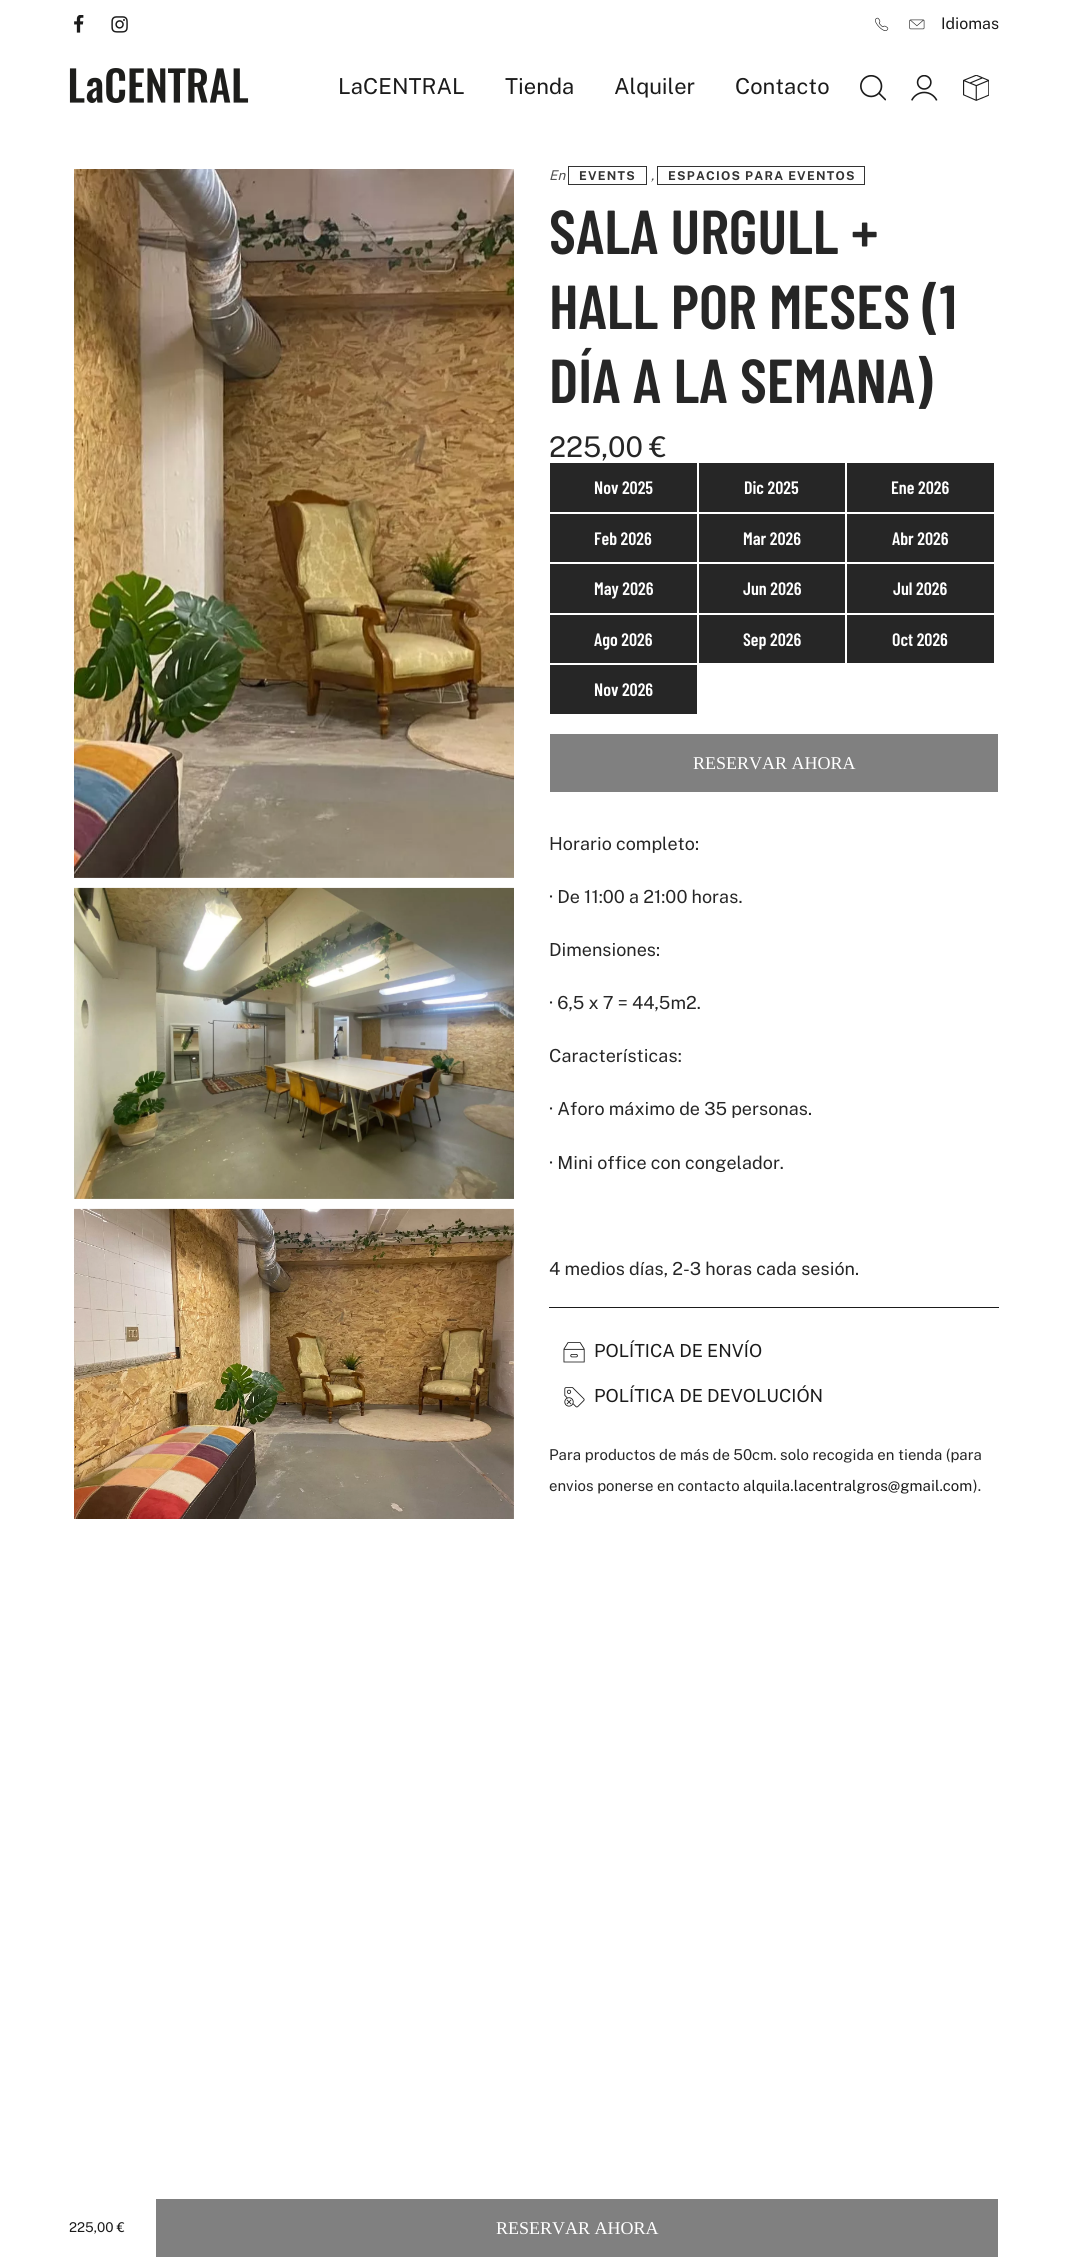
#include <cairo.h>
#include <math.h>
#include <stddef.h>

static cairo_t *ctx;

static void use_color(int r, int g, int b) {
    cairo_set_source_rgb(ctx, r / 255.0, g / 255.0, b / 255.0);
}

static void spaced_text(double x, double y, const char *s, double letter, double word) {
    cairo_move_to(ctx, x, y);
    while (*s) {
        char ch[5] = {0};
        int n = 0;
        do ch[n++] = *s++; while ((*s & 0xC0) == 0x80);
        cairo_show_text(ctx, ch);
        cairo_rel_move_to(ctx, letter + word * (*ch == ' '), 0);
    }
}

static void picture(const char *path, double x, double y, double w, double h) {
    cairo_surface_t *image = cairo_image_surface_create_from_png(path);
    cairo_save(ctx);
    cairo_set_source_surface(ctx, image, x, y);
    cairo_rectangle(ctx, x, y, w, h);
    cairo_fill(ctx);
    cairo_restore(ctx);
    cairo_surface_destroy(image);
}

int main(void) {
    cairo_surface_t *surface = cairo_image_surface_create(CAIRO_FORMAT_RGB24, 1068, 2268);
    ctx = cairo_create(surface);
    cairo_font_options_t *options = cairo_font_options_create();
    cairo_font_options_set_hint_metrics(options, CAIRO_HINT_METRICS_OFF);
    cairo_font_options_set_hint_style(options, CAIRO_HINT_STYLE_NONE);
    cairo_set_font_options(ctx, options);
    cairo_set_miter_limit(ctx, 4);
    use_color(255, 255, 255);
    cairo_paint(ctx);
    picture("img1.png", 74, 15, 10, 18);
    picture("img2.png", 111, 16, 17, 17);
    picture("img3.png", 875, 17, 14, 14);
    picture("img4.png", 909, 19, 16, 11);
    cairo_select_font_face(ctx, "Public Sans", CAIRO_FONT_SLANT_NORMAL, CAIRO_FONT_WEIGHT_NORMAL);
    cairo_set_font_size(ctx, 16);
    use_color(27, 27, 27);
    cairo_move_to(ctx, 941, 29);
    cairo_show_text(ctx, "Idiomas");
    picture("img5.png", 69, 68, 180, 35);
    cairo_set_font_size(ctx, 22);
    cairo_move_to(ctx, 338, 94);
    cairo_show_text(ctx, "LaCENTRAL");
    cairo_move_to(ctx, 505, 94);
    cairo_show_text(ctx, "Tienda");
    cairo_move_to(ctx, 614, 94);
    cairo_show_text(ctx, "Alquiler");
    cairo_move_to(ctx, 735, 94);
    cairo_show_text(ctx, "Contacto");
    picture("img6.png", 860, 75, 26, 26);
    picture("img7.png", 911, 75, 27, 26);
    picture("img8.png", 963, 75, 26, 26);
    picture("img9.png", 74, 169, 440, 709);
    picture("img10.png", 74, 887, 440, 312);
    picture("img11.png", 74, 1208, 440, 311);
    cairo_select_font_face(ctx, "Public Sans", CAIRO_FONT_SLANT_ITALIC, CAIRO_FONT_WEIGHT_NORMAL);
    cairo_set_font_size(ctx, 13.5);
    use_color(81, 81, 81);
    cairo_move_to(ctx, 549, 180);
    cairo_show_text(ctx, "En");
    cairo_rectangle(ctx, 568.5, 166.5, 78, 18);
    use_color(51, 51, 51);
    cairo_set_line_width(ctx, 1);
    cairo_stroke(ctx);
    cairo_select_font_face(ctx, "Public Sans", CAIRO_FONT_SLANT_NORMAL, CAIRO_FONT_WEIGHT_BOLD);
    cairo_set_font_size(ctx, 12.2);
    spaced_text(579, 180, "EVENTS", 1.25, 0);
    cairo_select_font_face(ctx, "Public Sans", CAIRO_FONT_SLANT_ITALIC, CAIRO_FONT_WEIGHT_NORMAL);
    cairo_set_font_size(ctx, 13.5);
    use_color(81, 81, 81);
    cairo_move_to(ctx, 651, 180);
    cairo_show_text(ctx, ",");
    cairo_rectangle(ctx, 657.5, 166.5, 207, 18);
    use_color(51, 51, 51);
    cairo_stroke(ctx);
    cairo_select_font_face(ctx, "Public Sans", CAIRO_FONT_SLANT_NORMAL, CAIRO_FONT_WEIGHT_BOLD);
    cairo_set_font_size(ctx, 12.2);
    spaced_text(668, 180, "ESPACIOS PARA EVENTOS", 1.25, 0);
    cairo_select_font_face(ctx, "Barlow Condensed SemiBold", CAIRO_FONT_SLANT_NORMAL, CAIRO_FONT_WEIGHT_NORMAL);
    cairo_set_font_size(ctx, 62);
    use_color(38, 38, 38);
    cairo_move_to(ctx, 549, 254);
    cairo_show_text(ctx, "SALA URGULL +");
    cairo_move_to(ctx, 549, 329);
    cairo_show_text(ctx, "HALL POR MESES (1");
    cairo_move_to(ctx, 549, 403);
    cairo_show_text(ctx, "DÍA A LA SEMANA)");
    cairo_select_font_face(ctx, "Public Sans", CAIRO_FONT_SLANT_NORMAL, CAIRO_FONT_WEIGHT_NORMAL);
    cairo_set_font_size(ctx, 28.5);
    cairo_move_to(ctx, 549, 457);
    cairo_show_text(ctx, "225,00 €");
    cairo_rectangle(ctx, 550, 463, 147, 49);
    cairo_fill(ctx);
    cairo_select_font_face(ctx, "Barlow Condensed SemiBold", CAIRO_FONT_SLANT_NORMAL, CAIRO_FONT_WEIGHT_NORMAL);
    cairo_set_font_size(ctx, 18);
    use_color(255, 255, 255);
    cairo_move_to(ctx, 594, 494);
    cairo_show_text(ctx, "Nov 2025");
    use_color(38, 38, 38);
    cairo_rectangle(ctx, 699, 463, 146, 49);
    cairo_fill(ctx);
    use_color(255, 255, 255);
    cairo_move_to(ctx, 744, 494);
    cairo_show_text(ctx, "Dic 2025");
    use_color(38, 38, 38);
    cairo_rectangle(ctx, 847, 463, 147, 49);
    cairo_fill(ctx);
    use_color(255, 255, 255);
    cairo_move_to(ctx, 891, 494);
    cairo_show_text(ctx, "Ene 2026");
    use_color(38, 38, 38);
    cairo_rectangle(ctx, 550, 514, 147, 48);
    cairo_fill(ctx);
    use_color(255, 255, 255);
    cairo_move_to(ctx, 594, 545);
    cairo_show_text(ctx, "Feb 2026");
    use_color(38, 38, 38);
    cairo_rectangle(ctx, 699, 514, 146, 48);
    cairo_fill(ctx);
    use_color(255, 255, 255);
    cairo_move_to(ctx, 743, 545);
    cairo_show_text(ctx, "Mar 2026");
    use_color(38, 38, 38);
    cairo_rectangle(ctx, 847, 514, 147, 48);
    cairo_fill(ctx);
    use_color(255, 255, 255);
    cairo_move_to(ctx, 892, 545);
    cairo_show_text(ctx, "Abr 2026");
    use_color(38, 38, 38);
    cairo_rectangle(ctx, 550, 564, 147, 49);
    cairo_fill(ctx);
    use_color(255, 255, 255);
    cairo_move_to(ctx, 594, 595);
    cairo_show_text(ctx, "May 2026");
    use_color(38, 38, 38);
    cairo_rectangle(ctx, 699, 564, 146, 49);
    cairo_fill(ctx);
    use_color(255, 255, 255);
    cairo_move_to(ctx, 743, 595);
    cairo_show_text(ctx, "Jun 2026");
    use_color(38, 38, 38);
    cairo_rectangle(ctx, 847, 564, 147, 49);
    cairo_fill(ctx);
    use_color(255, 255, 255);
    cairo_move_to(ctx, 893, 595);
    cairo_show_text(ctx, "Jul 2026");
    use_color(38, 38, 38);
    cairo_rectangle(ctx, 550, 615, 147, 48);
    cairo_fill(ctx);
    use_color(255, 255, 255);
    cairo_move_to(ctx, 594, 646);
    cairo_show_text(ctx, "Ago 2026");
    use_color(38, 38, 38);
    cairo_rectangle(ctx, 699, 615, 146, 48);
    cairo_fill(ctx);
    use_color(255, 255, 255);
    cairo_move_to(ctx, 743, 646);
    cairo_show_text(ctx, "Sep 2026");
    use_color(38, 38, 38);
    cairo_rectangle(ctx, 847, 615, 147, 48);
    cairo_fill(ctx);
    use_color(255, 255, 255);
    cairo_move_to(ctx, 892, 646);
    cairo_show_text(ctx, "Oct 2026");
    use_color(38, 38, 38);
    cairo_rectangle(ctx, 550, 665, 147, 49);
    cairo_fill(ctx);
    use_color(255, 255, 255);
    cairo_move_to(ctx, 594, 696);
    cairo_show_text(ctx, "Nov 2026");
    use_color(128, 128, 128);
    cairo_rectangle(ctx, 550, 734, 448, 58);
    cairo_fill(ctx);
    cairo_select_font_face(ctx, "Liberation Serif", CAIRO_FONT_SLANT_NORMAL, CAIRO_FONT_WEIGHT_NORMAL);
    use_color(255, 255, 255);
    cairo_move_to(ctx, 693, 769);
    cairo_show_text(ctx, "RESERVAR AHORA");
    cairo_select_font_face(ctx, "Public Sans", CAIRO_FONT_SLANT_NORMAL, CAIRO_FONT_WEIGHT_NORMAL);
    use_color(38, 38, 38);
    cairo_move_to(ctx, 549, 850);
    cairo_show_text(ctx, "Horario completo:");
    cairo_move_to(ctx, 549, 903);
    cairo_show_text(ctx, "· De 11:00 a 21:00 horas.");
    cairo_move_to(ctx, 549, 956);
    cairo_show_text(ctx, "Dimensiones:");
    cairo_move_to(ctx, 549, 1009);
    cairo_show_text(ctx, "· 6,5 x 7 = 44,5m2.");
    cairo_move_to(ctx, 549, 1062);
    cairo_show_text(ctx, "Características:");
    cairo_move_to(ctx, 549, 1115);
    cairo_show_text(ctx, "· Aforo máximo de 35 personas.");
    cairo_move_to(ctx, 549, 1169);
    cairo_show_text(ctx, "· Mini office con congelador.");
    cairo_move_to(ctx, 549, 1275);
    cairo_show_text(ctx, "4 medios días, 2-3 horas cada sesión.");
    use_color(27, 27, 27);
    cairo_rectangle(ctx, 549, 1307, 450, 1);
    cairo_fill(ctx);
    picture("img12.png", 563, 1342, 22, 21);
    cairo_move_to(ctx, 594, 1357);
    cairo_show_text(ctx, "POLÍTICA DE ENVÍO");
    picture("img13.png", 564, 1387, 21, 21);
    cairo_move_to(ctx, 594, 1402);
    cairo_show_text(ctx, "POLÍTICA DE DEVOLUCIÓN");
    cairo_set_font_size(ctx, 15);
    use_color(38, 38, 38);
    cairo_move_to(ctx, 549, 1460);
    cairo_show_text(ctx, "Para productos de más de 50cm. solo recogida en tienda (para");
    cairo_move_to(ctx, 549, 1491);
    cairo_show_text(ctx, "envios ponerse en contacto");
    use_color(27, 27, 27);
    cairo_move_to(ctx, 743, 1491);
    cairo_show_text(ctx, "alquila.lacentralgros@gmail.com");
    use_color(38, 38, 38);
    cairo_move_to(ctx, 973, 1491);
    cairo_show_text(ctx, ").");
    cairo_set_font_size(ctx, 13.5);
    use_color(27, 27, 27);
    cairo_move_to(ctx, 69, 2232);
    cairo_show_text(ctx, "225,00 €");
    use_color(128, 128, 128);
    cairo_rectangle(ctx, 156, 2199, 842, 58);
    cairo_fill(ctx);
    cairo_select_font_face(ctx, "Liberation Serif", CAIRO_FONT_SLANT_NORMAL, CAIRO_FONT_WEIGHT_NORMAL);
    cairo_set_font_size(ctx, 18);
    use_color(255, 255, 255);
    cairo_move_to(ctx, 496, 2234);
    cairo_show_text(ctx, "RESERVAR AHORA");
    cairo_surface_write_to_png(surface, "result.png");
    cairo_font_options_destroy(options);
    cairo_destroy(ctx);
    cairo_surface_destroy(surface);
    return 0;
}
